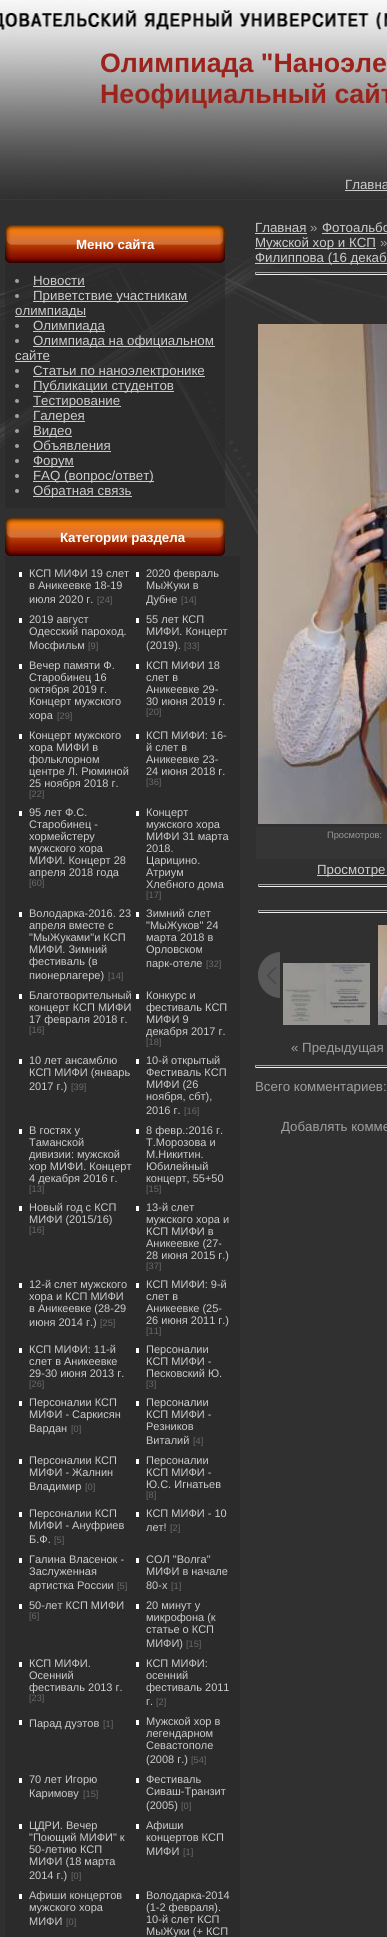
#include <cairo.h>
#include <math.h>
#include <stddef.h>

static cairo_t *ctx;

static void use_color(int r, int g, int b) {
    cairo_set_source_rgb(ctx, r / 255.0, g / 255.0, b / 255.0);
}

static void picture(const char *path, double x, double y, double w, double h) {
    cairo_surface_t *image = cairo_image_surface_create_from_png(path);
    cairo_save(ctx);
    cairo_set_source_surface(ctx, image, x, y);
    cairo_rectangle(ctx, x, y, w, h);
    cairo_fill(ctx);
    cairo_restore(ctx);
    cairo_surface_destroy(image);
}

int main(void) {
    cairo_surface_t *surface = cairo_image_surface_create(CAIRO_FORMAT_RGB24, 387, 1937);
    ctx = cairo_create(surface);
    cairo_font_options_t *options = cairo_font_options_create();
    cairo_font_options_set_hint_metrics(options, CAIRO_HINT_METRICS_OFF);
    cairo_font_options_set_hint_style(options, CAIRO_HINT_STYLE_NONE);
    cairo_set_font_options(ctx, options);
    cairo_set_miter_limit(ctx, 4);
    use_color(255, 255, 255);
    cairo_paint(ctx);
    picture("img1.png", 0, 0, 387, 200);
    cairo_select_font_face(ctx, "Liberation Sans", CAIRO_FONT_SLANT_NORMAL, CAIRO_FONT_WEIGHT_BOLD);
    cairo_set_font_size(ctx, 26.75);
    use_color(156, 35, 27);
    cairo_move_to(ctx, 100, 72);
    cairo_show_text(ctx, "Олимпиада \"Наноэле");
    cairo_move_to(ctx, 100, 103);
    cairo_show_text(ctx, "Неофициальный сайт");
    cairo_select_font_face(ctx, "Liberation Sans", CAIRO_FONT_SLANT_NORMAL, CAIRO_FONT_WEIGHT_NORMAL);
    cairo_set_font_size(ctx, 13.3);
    use_color(204, 204, 204);
    cairo_move_to(ctx, 345, 189);
    cairo_show_text(ctx, "Главна");
    cairo_rectangle(ctx, 345, 190, 42, 1);
    cairo_fill(ctx);
    use_color(48, 48, 48);
    cairo_rectangle(ctx, 0, 200, 387, 1737);
    cairo_fill(ctx);
    picture("img2.png", 0, 250, 387, 454);
    picture("img3.png", 5, 225, 220, 38);
    cairo_select_font_face(ctx, "Liberation Sans", CAIRO_FONT_SLANT_NORMAL, CAIRO_FONT_WEIGHT_BOLD);
    use_color(255, 255, 255);
    cairo_move_to(ctx, 76, 249);
    cairo_show_text(ctx, "Меню сайта");
    cairo_set_source_rgba(ctx, 0.153, 0.153, 0.153, 0.54);
    cairo_rectangle(ctx, 5, 263, 220, 245);
    cairo_fill(ctx);
    use_color(159, 159, 159);
    cairo_arc(ctx, 17, 281, 2, 0, 2 * M_PI);
    cairo_fill(ctx);
    cairo_select_font_face(ctx, "Liberation Sans", CAIRO_FONT_SLANT_NORMAL, CAIRO_FONT_WEIGHT_NORMAL);
    use_color(204, 204, 204);
    cairo_move_to(ctx, 33, 285);
    cairo_show_text(ctx, "Новости");
    cairo_rectangle(ctx, 33, 286, 52, 1);
    cairo_fill(ctx);
    use_color(159, 159, 159);
    cairo_arc(ctx, 17, 296, 2, 0, 2 * M_PI);
    cairo_fill(ctx);
    use_color(204, 204, 204);
    cairo_rectangle(ctx, 33, 301, 155, 1);
    cairo_fill(ctx);
    cairo_move_to(ctx, 33, 300);
    cairo_show_text(ctx, "Приветствие участникам");
    cairo_rectangle(ctx, 15, 316, 71, 1);
    cairo_fill(ctx);
    cairo_move_to(ctx, 15, 315);
    cairo_show_text(ctx, "олимпиады");
    use_color(159, 159, 159);
    cairo_new_path(ctx);
    cairo_arc(ctx, 17, 326, 2, 0, 2 * M_PI);
    cairo_fill(ctx);
    use_color(204, 204, 204);
    cairo_rectangle(ctx, 33, 331, 72, 1);
    cairo_fill(ctx);
    cairo_move_to(ctx, 33, 330);
    cairo_show_text(ctx, "Олимпиада");
    use_color(159, 159, 159);
    cairo_new_path(ctx);
    cairo_arc(ctx, 17, 341, 2, 0, 2 * M_PI);
    cairo_fill(ctx);
    use_color(204, 204, 204);
    cairo_rectangle(ctx, 33, 346, 182, 1);
    cairo_fill(ctx);
    cairo_move_to(ctx, 33, 345);
    cairo_show_text(ctx, "Олимпиада на официальном");
    cairo_move_to(ctx, 15, 360);
    cairo_show_text(ctx, "сайте");
    cairo_rectangle(ctx, 15, 361, 35, 1);
    cairo_fill(ctx);
    use_color(159, 159, 159);
    cairo_arc(ctx, 17, 371, 2, 0, 2 * M_PI);
    cairo_fill(ctx);
    use_color(204, 204, 204);
    cairo_rectangle(ctx, 33, 376, 172, 1);
    cairo_fill(ctx);
    cairo_move_to(ctx, 33, 375);
    cairo_show_text(ctx, "Статьи по наноэлектронике");
    use_color(159, 159, 159);
    cairo_new_path(ctx);
    cairo_arc(ctx, 17, 386, 2, 0, 2 * M_PI);
    cairo_fill(ctx);
    use_color(204, 204, 204);
    cairo_rectangle(ctx, 33, 391, 141, 1);
    cairo_fill(ctx);
    cairo_move_to(ctx, 33, 390);
    cairo_show_text(ctx, "Публикации студентов");
    use_color(159, 159, 159);
    cairo_new_path(ctx);
    cairo_arc(ctx, 17, 401, 2, 0, 2 * M_PI);
    cairo_fill(ctx);
    use_color(204, 204, 204);
    cairo_rectangle(ctx, 33, 406, 88, 1);
    cairo_fill(ctx);
    cairo_move_to(ctx, 33, 405);
    cairo_show_text(ctx, "Тестирование");
    use_color(159, 159, 159);
    cairo_new_path(ctx);
    cairo_arc(ctx, 17, 416, 2, 0, 2 * M_PI);
    cairo_fill(ctx);
    use_color(204, 204, 204);
    cairo_rectangle(ctx, 33, 421, 52, 1);
    cairo_fill(ctx);
    cairo_move_to(ctx, 33, 420);
    cairo_show_text(ctx, "Галерея");
    use_color(159, 159, 159);
    cairo_new_path(ctx);
    cairo_arc(ctx, 17, 431, 2, 0, 2 * M_PI);
    cairo_fill(ctx);
    use_color(204, 204, 204);
    cairo_rectangle(ctx, 33, 436, 39, 1);
    cairo_fill(ctx);
    cairo_move_to(ctx, 33, 435);
    cairo_show_text(ctx, "Видео");
    use_color(159, 159, 159);
    cairo_new_path(ctx);
    cairo_arc(ctx, 17, 446, 2, 0, 2 * M_PI);
    cairo_fill(ctx);
    use_color(204, 204, 204);
    cairo_move_to(ctx, 33, 450);
    cairo_show_text(ctx, "Объявления");
    cairo_rectangle(ctx, 33, 451, 78, 1);
    cairo_fill(ctx);
    use_color(159, 159, 159);
    cairo_arc(ctx, 17, 461, 2, 0, 2 * M_PI);
    cairo_fill(ctx);
    use_color(204, 204, 204);
    cairo_rectangle(ctx, 33, 466, 41, 1);
    cairo_fill(ctx);
    cairo_move_to(ctx, 33, 465);
    cairo_show_text(ctx, "Форум");
    use_color(159, 159, 159);
    cairo_new_path(ctx);
    cairo_arc(ctx, 17, 476, 2, 0, 2 * M_PI);
    cairo_fill(ctx);
    use_color(204, 204, 204);
    cairo_rectangle(ctx, 33, 481, 121, 1);
    cairo_fill(ctx);
    cairo_move_to(ctx, 33, 480);
    cairo_show_text(ctx, "FAQ (вопрос/ответ)");
    use_color(159, 159, 159);
    cairo_new_path(ctx);
    cairo_arc(ctx, 17, 491, 2, 0, 2 * M_PI);
    cairo_fill(ctx);
    use_color(204, 204, 204);
    cairo_rectangle(ctx, 33, 496, 99, 1);
    cairo_fill(ctx);
    cairo_move_to(ctx, 33, 495);
    cairo_show_text(ctx, "Обратная связь");
    picture("img4.png", 5, 518, 220, 38);
    cairo_select_font_face(ctx, "Liberation Sans", CAIRO_FONT_SLANT_NORMAL, CAIRO_FONT_WEIGHT_BOLD);
    use_color(255, 255, 255);
    cairo_move_to(ctx, 60, 542);
    cairo_show_text(ctx, "Категории раздела");
    use_color(43, 43, 43);
    cairo_rectangle(ctx, 5, 556, 235, 1381);
    cairo_fill(ctx);
    use_color(255, 255, 255);
    cairo_rectangle(ctx, 19, 572, 3, 5);
    cairo_fill(ctx);
    cairo_select_font_face(ctx, "Liberation Sans", CAIRO_FONT_SLANT_NORMAL, CAIRO_FONT_WEIGHT_NORMAL);
    cairo_set_font_size(ctx, 11);
    use_color(204, 204, 204);
    cairo_move_to(ctx, 29, 577);
    cairo_show_text(ctx, "КСП МИФИ 19 слет");
    cairo_move_to(ctx, 29, 589);
    cairo_show_text(ctx, "в Аникеевке 18-19");
    cairo_move_to(ctx, 29, 603);
    cairo_show_text(ctx, "июля 2020 г.");
    cairo_set_font_size(ctx, 9.25);
    use_color(105, 105, 105);
    cairo_move_to(ctx, 97, 603);
    cairo_show_text(ctx, "[24]");
    use_color(255, 255, 255);
    cairo_rectangle(ctx, 136, 572, 3, 5);
    cairo_fill(ctx);
    cairo_set_font_size(ctx, 11);
    use_color(204, 204, 204);
    cairo_move_to(ctx, 146, 577);
    cairo_show_text(ctx, "2020 февраль");
    cairo_move_to(ctx, 146, 589);
    cairo_show_text(ctx, "МыЖуки в");
    cairo_move_to(ctx, 146, 603);
    cairo_show_text(ctx, "Дубне");
    cairo_set_font_size(ctx, 9.25);
    use_color(105, 105, 105);
    cairo_move_to(ctx, 181, 603);
    cairo_show_text(ctx, "[14]");
    use_color(255, 255, 255);
    cairo_rectangle(ctx, 19, 618, 3, 5);
    cairo_fill(ctx);
    cairo_set_font_size(ctx, 11);
    use_color(204, 204, 204);
    cairo_move_to(ctx, 29, 623);
    cairo_show_text(ctx, "2019 август");
    cairo_move_to(ctx, 29, 635);
    cairo_show_text(ctx, "Одесский пароход.");
    cairo_move_to(ctx, 29, 649);
    cairo_show_text(ctx, "Мосфильм");
    cairo_set_font_size(ctx, 9.25);
    use_color(105, 105, 105);
    cairo_move_to(ctx, 88, 649);
    cairo_show_text(ctx, "[9]");
    use_color(255, 255, 255);
    cairo_rectangle(ctx, 136, 618, 3, 5);
    cairo_fill(ctx);
    cairo_set_font_size(ctx, 11);
    use_color(204, 204, 204);
    cairo_move_to(ctx, 146, 623);
    cairo_show_text(ctx, "55 лет КСП");
    cairo_move_to(ctx, 146, 635);
    cairo_show_text(ctx, "МИФИ. Концерт");
    cairo_move_to(ctx, 146, 649);
    cairo_show_text(ctx, "(2019).");
    cairo_set_font_size(ctx, 9.25);
    use_color(105, 105, 105);
    cairo_move_to(ctx, 184, 649);
    cairo_show_text(ctx, "[33]");
    use_color(255, 255, 255);
    cairo_rectangle(ctx, 19, 664, 3, 5);
    cairo_fill(ctx);
    cairo_set_font_size(ctx, 11);
    use_color(204, 204, 204);
    cairo_move_to(ctx, 29, 669);
    cairo_show_text(ctx, "Вечер памяти Ф.");
    cairo_move_to(ctx, 29, 681);
    cairo_show_text(ctx, "Старобинец 16");
    cairo_move_to(ctx, 29, 693);
    cairo_show_text(ctx, "октября 2019 г.");
    cairo_move_to(ctx, 29, 705);
    cairo_show_text(ctx, "Концерт мужского");
    cairo_move_to(ctx, 29, 719);
    cairo_show_text(ctx, "хора");
    cairo_set_font_size(ctx, 9.25);
    use_color(105, 105, 105);
    cairo_move_to(ctx, 57, 719);
    cairo_show_text(ctx, "[29]");
    use_color(255, 255, 255);
    cairo_rectangle(ctx, 136, 664, 3, 5);
    cairo_fill(ctx);
    cairo_set_font_size(ctx, 11);
    use_color(204, 204, 204);
    cairo_move_to(ctx, 146, 669);
    cairo_show_text(ctx, "КСП МИФИ 18");
    cairo_move_to(ctx, 146, 681);
    cairo_show_text(ctx, "слет в");
    cairo_move_to(ctx, 146, 693);
    cairo_show_text(ctx, "Аникеевке 29-");
    cairo_move_to(ctx, 146, 705);
    cairo_show_text(ctx, "30 июня 2019 г.");
    cairo_set_font_size(ctx, 9.25);
    use_color(105, 105, 105);
    cairo_move_to(ctx, 146, 715);
    cairo_show_text(ctx, "[20]");
    use_color(255, 255, 255);
    cairo_rectangle(ctx, 19, 734, 3, 5);
    cairo_fill(ctx);
    cairo_set_font_size(ctx, 11);
    use_color(204, 204, 204);
    cairo_move_to(ctx, 29, 739);
    cairo_show_text(ctx, "Концерт мужского");
    cairo_move_to(ctx, 29, 751);
    cairo_show_text(ctx, "хора МИФИ в");
    cairo_move_to(ctx, 29, 763);
    cairo_show_text(ctx, "фольклорном");
    cairo_move_to(ctx, 29, 775);
    cairo_show_text(ctx, "центре Л. Рюминой");
    cairo_move_to(ctx, 29, 787);
    cairo_show_text(ctx, "25 ноября 2018 г.");
    cairo_set_font_size(ctx, 9.25);
    use_color(105, 105, 105);
    cairo_move_to(ctx, 29, 797);
    cairo_show_text(ctx, "[22]");
    use_color(255, 255, 255);
    cairo_rectangle(ctx, 136, 734, 3, 5);
    cairo_fill(ctx);
    cairo_set_font_size(ctx, 11);
    use_color(204, 204, 204);
    cairo_move_to(ctx, 146, 739);
    cairo_show_text(ctx, "КСП МИФИ: 16-");
    cairo_move_to(ctx, 146, 751);
    cairo_show_text(ctx, "й слет в");
    cairo_move_to(ctx, 146, 763);
    cairo_show_text(ctx, "Аникеевке 23-");
    cairo_move_to(ctx, 146, 775);
    cairo_show_text(ctx, "24 июня 2018 г.");
    cairo_set_font_size(ctx, 9.25);
    use_color(105, 105, 105);
    cairo_move_to(ctx, 146, 785);
    cairo_show_text(ctx, "[36]");
    use_color(255, 255, 255);
    cairo_rectangle(ctx, 19, 811, 3, 5);
    cairo_fill(ctx);
    cairo_set_font_size(ctx, 11);
    use_color(204, 204, 204);
    cairo_move_to(ctx, 29, 816);
    cairo_show_text(ctx, "95 лет Ф.С.");
    cairo_move_to(ctx, 29, 828);
    cairo_show_text(ctx, "Старобинец -");
    cairo_move_to(ctx, 29, 840);
    cairo_show_text(ctx, "хормейстеру");
    cairo_move_to(ctx, 29, 852);
    cairo_show_text(ctx, "мужского хора");
    cairo_move_to(ctx, 29, 864);
    cairo_show_text(ctx, "МИФИ. Концерт 28");
    cairo_move_to(ctx, 29, 876);
    cairo_show_text(ctx, "апреля 2018 года");
    cairo_set_font_size(ctx, 9.25);
    use_color(105, 105, 105);
    cairo_move_to(ctx, 29, 886);
    cairo_show_text(ctx, "[60]");
    use_color(255, 255, 255);
    cairo_rectangle(ctx, 136, 811, 3, 5);
    cairo_fill(ctx);
    cairo_set_font_size(ctx, 11);
    use_color(204, 204, 204);
    cairo_move_to(ctx, 146, 816);
    cairo_show_text(ctx, "Концерт");
    cairo_move_to(ctx, 146, 828);
    cairo_show_text(ctx, "мужского хора");
    cairo_move_to(ctx, 146, 840);
    cairo_show_text(ctx, "МИФИ 31 марта");
    cairo_move_to(ctx, 146, 852);
    cairo_show_text(ctx, "2018.");
    cairo_move_to(ctx, 146, 864);
    cairo_show_text(ctx, "Царицино.");
    cairo_move_to(ctx, 146, 876);
    cairo_show_text(ctx, "Атриум");
    cairo_move_to(ctx, 146, 888);
    cairo_show_text(ctx, "Хлебного дома");
    cairo_set_font_size(ctx, 9.25);
    use_color(105, 105, 105);
    cairo_move_to(ctx, 146, 898);
    cairo_show_text(ctx, "[17]");
    use_color(255, 255, 255);
    cairo_rectangle(ctx, 19, 912, 3, 5);
    cairo_fill(ctx);
    cairo_set_font_size(ctx, 11);
    use_color(204, 204, 204);
    cairo_move_to(ctx, 29, 917);
    cairo_show_text(ctx, "Володарка-2016. 23");
    cairo_move_to(ctx, 29, 929);
    cairo_show_text(ctx, "апреля вместе с");
    cairo_move_to(ctx, 29, 941);
    cairo_show_text(ctx, "\"МыЖуками\"и КСП");
    cairo_move_to(ctx, 29, 953);
    cairo_show_text(ctx, "МИФИ. Зимний");
    cairo_move_to(ctx, 29, 965);
    cairo_show_text(ctx, "фестиваль (в");
    cairo_move_to(ctx, 29, 979);
    cairo_show_text(ctx, "пионерлагере)");
    cairo_set_font_size(ctx, 9.25);
    use_color(105, 105, 105);
    cairo_move_to(ctx, 108, 979);
    cairo_show_text(ctx, "[14]");
    use_color(255, 255, 255);
    cairo_rectangle(ctx, 136, 912, 3, 5);
    cairo_fill(ctx);
    cairo_set_font_size(ctx, 11);
    use_color(204, 204, 204);
    cairo_move_to(ctx, 146, 917);
    cairo_show_text(ctx, "Зимний слет");
    cairo_move_to(ctx, 146, 929);
    cairo_show_text(ctx, "\"МыЖуков\" 24");
    cairo_move_to(ctx, 146, 941);
    cairo_show_text(ctx, "марта 2018 в");
    cairo_move_to(ctx, 146, 953);
    cairo_show_text(ctx, "Орловском");
    cairo_move_to(ctx, 146, 967);
    cairo_show_text(ctx, "парк-отеле");
    cairo_set_font_size(ctx, 9.25);
    use_color(105, 105, 105);
    cairo_move_to(ctx, 206, 967);
    cairo_show_text(ctx, "[32]");
    use_color(255, 255, 255);
    cairo_rectangle(ctx, 19, 994, 3, 5);
    cairo_fill(ctx);
    cairo_set_font_size(ctx, 11);
    use_color(204, 204, 204);
    cairo_move_to(ctx, 29, 999);
    cairo_show_text(ctx, "Благотворительный");
    cairo_move_to(ctx, 29, 1011);
    cairo_show_text(ctx, "концерт КСП МИФИ");
    cairo_move_to(ctx, 29, 1023);
    cairo_show_text(ctx, "17 февраля 2018 г.");
    cairo_set_font_size(ctx, 9.25);
    use_color(105, 105, 105);
    cairo_move_to(ctx, 29, 1033);
    cairo_show_text(ctx, "[16]");
    use_color(255, 255, 255);
    cairo_rectangle(ctx, 136, 994, 3, 5);
    cairo_fill(ctx);
    cairo_set_font_size(ctx, 11);
    use_color(204, 204, 204);
    cairo_move_to(ctx, 146, 999);
    cairo_show_text(ctx, "Конкурс и");
    cairo_move_to(ctx, 146, 1011);
    cairo_show_text(ctx, "фестиваль КСП");
    cairo_move_to(ctx, 146, 1023);
    cairo_show_text(ctx, "МИФИ 9");
    cairo_move_to(ctx, 146, 1035);
    cairo_show_text(ctx, "декабря 2017 г.");
    cairo_set_font_size(ctx, 9.25);
    use_color(105, 105, 105);
    cairo_move_to(ctx, 146, 1045);
    cairo_show_text(ctx, "[18]");
    use_color(255, 255, 255);
    cairo_rectangle(ctx, 19, 1059, 3, 5);
    cairo_fill(ctx);
    cairo_set_font_size(ctx, 11);
    use_color(204, 204, 204);
    cairo_move_to(ctx, 29, 1064);
    cairo_show_text(ctx, "10 лет ансамблю");
    cairo_move_to(ctx, 29, 1076);
    cairo_show_text(ctx, "КСП МИФИ (январь");
    cairo_move_to(ctx, 29, 1090);
    cairo_show_text(ctx, "2017 г.)");
    cairo_set_font_size(ctx, 9.25);
    use_color(105, 105, 105);
    cairo_move_to(ctx, 71, 1090);
    cairo_show_text(ctx, "[39]");
    use_color(255, 255, 255);
    cairo_rectangle(ctx, 136, 1059, 3, 5);
    cairo_fill(ctx);
    cairo_set_font_size(ctx, 11);
    use_color(204, 204, 204);
    cairo_move_to(ctx, 146, 1064);
    cairo_show_text(ctx, "10-й открытый");
    cairo_move_to(ctx, 146, 1076);
    cairo_show_text(ctx, "Фестиваль КСП");
    cairo_move_to(ctx, 146, 1088);
    cairo_show_text(ctx, "МИФИ (26");
    cairo_move_to(ctx, 146, 1100);
    cairo_show_text(ctx, "ноября, сбт),");
    cairo_move_to(ctx, 146, 1114);
    cairo_show_text(ctx, "2016 г.");
    cairo_set_font_size(ctx, 9.25);
    use_color(105, 105, 105);
    cairo_move_to(ctx, 184, 1114);
    cairo_show_text(ctx, "[16]");
    use_color(255, 255, 255);
    cairo_rectangle(ctx, 19, 1129, 3, 5);
    cairo_fill(ctx);
    cairo_set_font_size(ctx, 11);
    use_color(204, 204, 204);
    cairo_move_to(ctx, 29, 1134);
    cairo_show_text(ctx, "В гостях у");
    cairo_move_to(ctx, 29, 1146);
    cairo_show_text(ctx, "Таманской");
    cairo_move_to(ctx, 29, 1158);
    cairo_show_text(ctx, "дивизии: мужской");
    cairo_move_to(ctx, 29, 1170);
    cairo_show_text(ctx, "хор МИФИ. Концерт");
    cairo_move_to(ctx, 29, 1182);
    cairo_show_text(ctx, "4 декабря 2016 г.");
    cairo_set_font_size(ctx, 9.25);
    use_color(105, 105, 105);
    cairo_move_to(ctx, 29, 1192);
    cairo_show_text(ctx, "[13]");
    use_color(255, 255, 255);
    cairo_rectangle(ctx, 136, 1129, 3, 5);
    cairo_fill(ctx);
    cairo_set_font_size(ctx, 11);
    use_color(204, 204, 204);
    cairo_move_to(ctx, 146, 1134);
    cairo_show_text(ctx, "8 февр.:2016 г.");
    cairo_move_to(ctx, 146, 1146);
    cairo_show_text(ctx, "Т.Морозова и");
    cairo_move_to(ctx, 146, 1158);
    cairo_show_text(ctx, "М.Никитин.");
    cairo_move_to(ctx, 146, 1170);
    cairo_show_text(ctx, "Юбилейный");
    cairo_move_to(ctx, 146, 1182);
    cairo_show_text(ctx, "концерт, 55+50");
    cairo_set_font_size(ctx, 9.25);
    use_color(105, 105, 105);
    cairo_move_to(ctx, 146, 1192);
    cairo_show_text(ctx, "[15]");
    use_color(255, 255, 255);
    cairo_rectangle(ctx, 19, 1206, 3, 5);
    cairo_fill(ctx);
    cairo_set_font_size(ctx, 11);
    use_color(204, 204, 204);
    cairo_move_to(ctx, 29, 1211);
    cairo_show_text(ctx, "Новый год с КСП");
    cairo_move_to(ctx, 29, 1223);
    cairo_show_text(ctx, "МИФИ (2015/16)");
    cairo_set_font_size(ctx, 9.25);
    use_color(105, 105, 105);
    cairo_move_to(ctx, 29, 1233);
    cairo_show_text(ctx, "[16]");
    use_color(255, 255, 255);
    cairo_rectangle(ctx, 136, 1206, 3, 5);
    cairo_fill(ctx);
    cairo_set_font_size(ctx, 11);
    use_color(204, 204, 204);
    cairo_move_to(ctx, 146, 1211);
    cairo_show_text(ctx, "13-й слет");
    cairo_move_to(ctx, 146, 1223);
    cairo_show_text(ctx, "мужского хора и");
    cairo_move_to(ctx, 146, 1235);
    cairo_show_text(ctx, "КСП МИФИ в");
    cairo_move_to(ctx, 146, 1247);
    cairo_show_text(ctx, "Аникеевке (27-");
    cairo_move_to(ctx, 146, 1259);
    cairo_show_text(ctx, "28 июня 2015 г.)");
    cairo_set_font_size(ctx, 9.25);
    use_color(105, 105, 105);
    cairo_move_to(ctx, 146, 1269);
    cairo_show_text(ctx, "[37]");
    use_color(255, 255, 255);
    cairo_rectangle(ctx, 19, 1283, 3, 5);
    cairo_fill(ctx);
    cairo_set_font_size(ctx, 11);
    use_color(204, 204, 204);
    cairo_move_to(ctx, 29, 1288);
    cairo_show_text(ctx, "12-й слет мужского");
    cairo_move_to(ctx, 29, 1300);
    cairo_show_text(ctx, "хора и КСП МИФИ");
    cairo_move_to(ctx, 29, 1312);
    cairo_show_text(ctx, "в Аникеевке (28-29");
    cairo_move_to(ctx, 29, 1326);
    cairo_show_text(ctx, "июня 2014 г.)");
    cairo_set_font_size(ctx, 9.25);
    use_color(105, 105, 105);
    cairo_move_to(ctx, 100, 1326);
    cairo_show_text(ctx, "[25]");
    use_color(255, 255, 255);
    cairo_rectangle(ctx, 136, 1283, 3, 5);
    cairo_fill(ctx);
    cairo_set_font_size(ctx, 11);
    use_color(204, 204, 204);
    cairo_move_to(ctx, 146, 1288);
    cairo_show_text(ctx, "КСП МИФИ: 9-й");
    cairo_move_to(ctx, 146, 1300);
    cairo_show_text(ctx, "слет в");
    cairo_move_to(ctx, 146, 1312);
    cairo_show_text(ctx, "Аникеевке (25-");
    cairo_move_to(ctx, 146, 1324);
    cairo_show_text(ctx, "26 июня 2011 г.)");
    cairo_set_font_size(ctx, 9.25);
    use_color(105, 105, 105);
    cairo_move_to(ctx, 146, 1334);
    cairo_show_text(ctx, "[11]");
    use_color(255, 255, 255);
    cairo_rectangle(ctx, 19, 1348, 3, 5);
    cairo_fill(ctx);
    cairo_set_font_size(ctx, 11);
    use_color(204, 204, 204);
    cairo_move_to(ctx, 29, 1353);
    cairo_show_text(ctx, "КСП МИФИ: 11-й");
    cairo_move_to(ctx, 29, 1365);
    cairo_show_text(ctx, "слет в Аникеевке");
    cairo_move_to(ctx, 29, 1377);
    cairo_show_text(ctx, "29-30 июня 2013 г.");
    cairo_set_font_size(ctx, 9.25);
    use_color(105, 105, 105);
    cairo_move_to(ctx, 29, 1387);
    cairo_show_text(ctx, "[26]");
    use_color(255, 255, 255);
    cairo_rectangle(ctx, 136, 1348, 3, 5);
    cairo_fill(ctx);
    cairo_set_font_size(ctx, 11);
    use_color(204, 204, 204);
    cairo_move_to(ctx, 146, 1353);
    cairo_show_text(ctx, "Персоналии");
    cairo_move_to(ctx, 146, 1365);
    cairo_show_text(ctx, "КСП МИФИ -");
    cairo_move_to(ctx, 146, 1377);
    cairo_show_text(ctx, "Песковский Ю.");
    cairo_set_font_size(ctx, 9.25);
    use_color(105, 105, 105);
    cairo_move_to(ctx, 146, 1387);
    cairo_show_text(ctx, "[3]");
    use_color(255, 255, 255);
    cairo_rectangle(ctx, 19, 1401, 3, 5);
    cairo_fill(ctx);
    cairo_set_font_size(ctx, 11);
    use_color(204, 204, 204);
    cairo_move_to(ctx, 29, 1406);
    cairo_show_text(ctx, "Персоналии КСП");
    cairo_move_to(ctx, 29, 1418);
    cairo_show_text(ctx, "МИФИ - Саркисян");
    cairo_move_to(ctx, 29, 1432);
    cairo_show_text(ctx, "Вардан");
    cairo_set_font_size(ctx, 9.25);
    use_color(105, 105, 105);
    cairo_move_to(ctx, 71, 1432);
    cairo_show_text(ctx, "[0]");
    use_color(255, 255, 255);
    cairo_rectangle(ctx, 136, 1401, 3, 5);
    cairo_fill(ctx);
    cairo_set_font_size(ctx, 11);
    use_color(204, 204, 204);
    cairo_move_to(ctx, 146, 1406);
    cairo_show_text(ctx, "Персоналии");
    cairo_move_to(ctx, 146, 1418);
    cairo_show_text(ctx, "КСП МИФИ -");
    cairo_move_to(ctx, 146, 1430);
    cairo_show_text(ctx, "Резников");
    cairo_move_to(ctx, 146, 1444);
    cairo_show_text(ctx, "Виталий");
    cairo_set_font_size(ctx, 9.25);
    use_color(105, 105, 105);
    cairo_move_to(ctx, 193, 1444);
    cairo_show_text(ctx, "[4]");
    use_color(255, 255, 255);
    cairo_rectangle(ctx, 19, 1459, 3, 5);
    cairo_fill(ctx);
    cairo_set_font_size(ctx, 11);
    use_color(204, 204, 204);
    cairo_move_to(ctx, 29, 1464);
    cairo_show_text(ctx, "Персоналии КСП");
    cairo_move_to(ctx, 29, 1476);
    cairo_show_text(ctx, "МИФИ - Жалнин");
    cairo_move_to(ctx, 29, 1490);
    cairo_show_text(ctx, "Владимир");
    cairo_set_font_size(ctx, 9.25);
    use_color(105, 105, 105);
    cairo_move_to(ctx, 85, 1490);
    cairo_show_text(ctx, "[0]");
    use_color(255, 255, 255);
    cairo_rectangle(ctx, 136, 1459, 3, 5);
    cairo_fill(ctx);
    cairo_set_font_size(ctx, 11);
    use_color(204, 204, 204);
    cairo_move_to(ctx, 146, 1464);
    cairo_show_text(ctx, "Персоналии");
    cairo_move_to(ctx, 146, 1476);
    cairo_show_text(ctx, "КСП МИФИ -");
    cairo_move_to(ctx, 146, 1488);
    cairo_show_text(ctx, "Ю.С. Игнатьев");
    cairo_set_font_size(ctx, 9.25);
    use_color(105, 105, 105);
    cairo_move_to(ctx, 146, 1498);
    cairo_show_text(ctx, "[8]");
    use_color(255, 255, 255);
    cairo_rectangle(ctx, 19, 1512, 3, 5);
    cairo_fill(ctx);
    cairo_set_font_size(ctx, 11);
    use_color(204, 204, 204);
    cairo_move_to(ctx, 29, 1517);
    cairo_show_text(ctx, "Персоналии КСП");
    cairo_move_to(ctx, 29, 1529);
    cairo_show_text(ctx, "МИФИ - Ануфриев");
    cairo_move_to(ctx, 29, 1543);
    cairo_show_text(ctx, "Б.Ф.");
    cairo_set_font_size(ctx, 9.25);
    use_color(105, 105, 105);
    cairo_move_to(ctx, 54, 1543);
    cairo_show_text(ctx, "[5]");
    use_color(255, 255, 255);
    cairo_rectangle(ctx, 136, 1512, 3, 5);
    cairo_fill(ctx);
    cairo_set_font_size(ctx, 11);
    use_color(204, 204, 204);
    cairo_move_to(ctx, 146, 1517);
    cairo_show_text(ctx, "КСП МИФИ - 10");
    cairo_move_to(ctx, 146, 1531);
    cairo_show_text(ctx, "лет!");
    cairo_set_font_size(ctx, 9.25);
    use_color(105, 105, 105);
    cairo_move_to(ctx, 170, 1531);
    cairo_show_text(ctx, "[2]");
    use_color(255, 255, 255);
    cairo_rectangle(ctx, 19, 1558, 3, 5);
    cairo_fill(ctx);
    cairo_set_font_size(ctx, 11);
    use_color(204, 204, 204);
    cairo_move_to(ctx, 29, 1563);
    cairo_show_text(ctx, "Галина Власенок -");
    cairo_move_to(ctx, 29, 1575);
    cairo_show_text(ctx, "Заслуженная");
    cairo_move_to(ctx, 29, 1589);
    cairo_show_text(ctx, "артистка России");
    cairo_set_font_size(ctx, 9.25);
    use_color(105, 105, 105);
    cairo_move_to(ctx, 117, 1589);
    cairo_show_text(ctx, "[5]");
    use_color(255, 255, 255);
    cairo_rectangle(ctx, 136, 1558, 3, 5);
    cairo_fill(ctx);
    cairo_set_font_size(ctx, 11);
    use_color(204, 204, 204);
    cairo_move_to(ctx, 146, 1563);
    cairo_show_text(ctx, "СОЛ \"Волга\"");
    cairo_move_to(ctx, 146, 1575);
    cairo_show_text(ctx, "МИФИ в начале");
    cairo_move_to(ctx, 146, 1589);
    cairo_show_text(ctx, "80-х");
    cairo_set_font_size(ctx, 9.25);
    use_color(105, 105, 105);
    cairo_move_to(ctx, 171, 1589);
    cairo_show_text(ctx, "[1]");
    use_color(255, 255, 255);
    cairo_rectangle(ctx, 19, 1604, 3, 5);
    cairo_fill(ctx);
    cairo_set_font_size(ctx, 11);
    use_color(204, 204, 204);
    cairo_move_to(ctx, 29, 1609);
    cairo_show_text(ctx, "50-лет КСП МИФИ");
    cairo_set_font_size(ctx, 9.25);
    use_color(105, 105, 105);
    cairo_move_to(ctx, 29, 1619);
    cairo_show_text(ctx, "[6]");
    use_color(255, 255, 255);
    cairo_rectangle(ctx, 136, 1604, 3, 5);
    cairo_fill(ctx);
    cairo_set_font_size(ctx, 11);
    use_color(204, 204, 204);
    cairo_move_to(ctx, 146, 1609);
    cairo_show_text(ctx, "20 минут у");
    cairo_move_to(ctx, 146, 1621);
    cairo_show_text(ctx, "микрофона (к");
    cairo_move_to(ctx, 146, 1633);
    cairo_show_text(ctx, "статье о КСП");
    cairo_move_to(ctx, 146, 1647);
    cairo_show_text(ctx, "МИФИ)");
    cairo_set_font_size(ctx, 9.25);
    use_color(105, 105, 105);
    cairo_move_to(ctx, 186, 1647);
    cairo_show_text(ctx, "[15]");
    use_color(255, 255, 255);
    cairo_rectangle(ctx, 19, 1662, 3, 5);
    cairo_fill(ctx);
    cairo_set_font_size(ctx, 11);
    use_color(204, 204, 204);
    cairo_move_to(ctx, 29, 1667);
    cairo_show_text(ctx, "КСП МИФИ.");
    cairo_move_to(ctx, 29, 1679);
    cairo_show_text(ctx, "Осенний");
    cairo_move_to(ctx, 29, 1691);
    cairo_show_text(ctx, "фестиваль 2013 г.");
    cairo_set_font_size(ctx, 9.25);
    use_color(105, 105, 105);
    cairo_move_to(ctx, 29, 1701);
    cairo_show_text(ctx, "[23]");
    use_color(255, 255, 255);
    cairo_rectangle(ctx, 136, 1662, 3, 5);
    cairo_fill(ctx);
    cairo_set_font_size(ctx, 11);
    use_color(204, 204, 204);
    cairo_move_to(ctx, 146, 1667);
    cairo_show_text(ctx, "КСП МИФИ:");
    cairo_move_to(ctx, 146, 1679);
    cairo_show_text(ctx, "осенний");
    cairo_move_to(ctx, 146, 1691);
    cairo_show_text(ctx, "фестиваль 2011");
    cairo_move_to(ctx, 146, 1705);
    cairo_show_text(ctx, "г.");
    cairo_set_font_size(ctx, 9.25);
    use_color(105, 105, 105);
    cairo_move_to(ctx, 156, 1705);
    cairo_show_text(ctx, "[2]");
    use_color(255, 255, 255);
    cairo_rectangle(ctx, 19, 1720, 3, 5);
    cairo_fill(ctx);
    cairo_set_font_size(ctx, 11);
    use_color(204, 204, 204);
    cairo_move_to(ctx, 29, 1727);
    cairo_show_text(ctx, "Парад дуэтов");
    cairo_set_font_size(ctx, 9.25);
    use_color(105, 105, 105);
    cairo_move_to(ctx, 103, 1727);
    cairo_show_text(ctx, "[1]");
    use_color(255, 255, 255);
    cairo_rectangle(ctx, 136, 1720, 3, 5);
    cairo_fill(ctx);
    cairo_set_font_size(ctx, 11);
    use_color(204, 204, 204);
    cairo_move_to(ctx, 146, 1725);
    cairo_show_text(ctx, "Мужской хор в");
    cairo_move_to(ctx, 146, 1737);
    cairo_show_text(ctx, "легендарном");
    cairo_move_to(ctx, 146, 1749);
    cairo_show_text(ctx, "Севастополе");
    cairo_move_to(ctx, 146, 1763);
    cairo_show_text(ctx, "(2008 г.)");
    cairo_set_font_size(ctx, 9.25);
    use_color(105, 105, 105);
    cairo_move_to(ctx, 191, 1763);
    cairo_show_text(ctx, "[54]");
    use_color(255, 255, 255);
    cairo_rectangle(ctx, 19, 1778, 3, 5);
    cairo_fill(ctx);
    cairo_set_font_size(ctx, 11);
    use_color(204, 204, 204);
    cairo_move_to(ctx, 29, 1783);
    cairo_show_text(ctx, "70 лет Игорю");
    cairo_move_to(ctx, 29, 1797);
    cairo_show_text(ctx, "Каримову");
    cairo_set_font_size(ctx, 9.25);
    use_color(105, 105, 105);
    cairo_move_to(ctx, 83, 1797);
    cairo_show_text(ctx, "[15]");
    use_color(255, 255, 255);
    cairo_rectangle(ctx, 136, 1778, 3, 5);
    cairo_fill(ctx);
    cairo_set_font_size(ctx, 11);
    use_color(204, 204, 204);
    cairo_move_to(ctx, 146, 1783);
    cairo_show_text(ctx, "Фестиваль");
    cairo_move_to(ctx, 146, 1795);
    cairo_show_text(ctx, "Сиваш-Транзит");
    cairo_move_to(ctx, 146, 1809);
    cairo_show_text(ctx, "(2005)");
    cairo_set_font_size(ctx, 9.25);
    use_color(105, 105, 105);
    cairo_move_to(ctx, 181, 1809);
    cairo_show_text(ctx, "[0]");
    use_color(255, 255, 255);
    cairo_rectangle(ctx, 19, 1824, 3, 5);
    cairo_fill(ctx);
    cairo_set_font_size(ctx, 11);
    use_color(204, 204, 204);
    cairo_move_to(ctx, 29, 1829);
    cairo_show_text(ctx, "ЦДРИ. Вечер");
    cairo_move_to(ctx, 29, 1841);
    cairo_show_text(ctx, "\"Поющий МИФИ\" к");
    cairo_move_to(ctx, 29, 1853);
    cairo_show_text(ctx, "50-летию КСП");
    cairo_move_to(ctx, 29, 1865);
    cairo_show_text(ctx, "МИФИ (18 марта");
    cairo_move_to(ctx, 29, 1879);
    cairo_show_text(ctx, "2014 г.)");
    cairo_set_font_size(ctx, 9.25);
    use_color(105, 105, 105);
    cairo_move_to(ctx, 71, 1879);
    cairo_show_text(ctx, "[0]");
    use_color(255, 255, 255);
    cairo_rectangle(ctx, 136, 1824, 3, 5);
    cairo_fill(ctx);
    cairo_set_font_size(ctx, 11);
    use_color(204, 204, 204);
    cairo_move_to(ctx, 146, 1829);
    cairo_show_text(ctx, "Афиши");
    cairo_move_to(ctx, 146, 1841);
    cairo_show_text(ctx, "концертов КСП");
    cairo_move_to(ctx, 146, 1855);
    cairo_show_text(ctx, "МИФИ");
    cairo_set_font_size(ctx, 9.25);
    use_color(105, 105, 105);
    cairo_move_to(ctx, 183, 1855);
    cairo_show_text(ctx, "[1]");
    use_color(255, 255, 255);
    cairo_rectangle(ctx, 19, 1894, 3, 5);
    cairo_fill(ctx);
    cairo_set_font_size(ctx, 11);
    use_color(204, 204, 204);
    cairo_move_to(ctx, 29, 1899);
    cairo_show_text(ctx, "Афиши концертов");
    cairo_move_to(ctx, 29, 1911);
    cairo_show_text(ctx, "мужского хора");
    cairo_move_to(ctx, 29, 1925);
    cairo_show_text(ctx, "МИФИ");
    cairo_set_font_size(ctx, 9.25);
    use_color(105, 105, 105);
    cairo_move_to(ctx, 66, 1925);
    cairo_show_text(ctx, "[0]");
    use_color(255, 255, 255);
    cairo_rectangle(ctx, 136, 1894, 3, 5);
    cairo_fill(ctx);
    cairo_set_font_size(ctx, 11);
    use_color(204, 204, 204);
    cairo_move_to(ctx, 146, 1899);
    cairo_show_text(ctx, "Володарка-2014");
    cairo_move_to(ctx, 146, 1911);
    cairo_show_text(ctx, "(1-2 февраля).");
    cairo_move_to(ctx, 146, 1923);
    cairo_show_text(ctx, "10-й слет КСП");
    cairo_move_to(ctx, 146, 1935);
    cairo_show_text(ctx, "МыЖуки (+ КСП");
    cairo_set_font_size(ctx, 13.3);
    cairo_move_to(ctx, 255, 232);
    cairo_show_text(ctx, "Главная");
    cairo_rectangle(ctx, 255, 233, 52, 1);
    cairo_fill(ctx);
    use_color(159, 159, 159);
    cairo_move_to(ctx, 310, 232);
    cairo_show_text(ctx, "»");
    use_color(204, 204, 204);
    cairo_move_to(ctx, 322, 232);
    cairo_show_text(ctx, "Фотоальбо");
    cairo_rectangle(ctx, 322, 233, 65, 1);
    cairo_fill(ctx);
    cairo_rectangle(ctx, 255, 248, 121, 1);
    cairo_fill(ctx);
    cairo_move_to(ctx, 255, 247);
    cairo_show_text(ctx, "Мужской хор и КСП");
    use_color(159, 159, 159);
    cairo_move_to(ctx, 380, 247);
    cairo_show_text(ctx, "»");
    use_color(204, 204, 204);
    cairo_rectangle(ctx, 255, 263, 132, 1);
    cairo_fill(ctx);
    cairo_move_to(ctx, 255, 262);
    cairo_show_text(ctx, "Филиппова (16 декаб");
    use_color(159, 159, 159);
    cairo_rectangle(ctx, 255, 272, 132, 1);
    cairo_fill(ctx);
    use_color(238, 238, 238);
    cairo_rectangle(ctx, 255, 274, 132, 1);
    cairo_fill(ctx);
    use_color(159, 159, 159);
    cairo_rectangle(ctx, 255, 272, 1, 3);
    cairo_fill(ctx);
    picture("img5.png", 258, 324, 129, 500);
    use_color(53, 53, 53);
    cairo_rectangle(ctx, 256, 827, 131, 32);
    cairo_fill(ctx);
    cairo_set_font_size(ctx, 9.25);
    use_color(153, 153, 153);
    cairo_move_to(ctx, 327, 838);
    cairo_show_text(ctx, "Просмотров:");
    use_color(204, 204, 204);
    cairo_rectangle(ctx, 317, 875, 70, 1);
    cairo_fill(ctx);
    cairo_set_font_size(ctx, 13.3);
    cairo_move_to(ctx, 317, 874);
    cairo_show_text(ctx, "Просмотре");
    use_color(159, 159, 159);
    cairo_rectangle(ctx, 258, 884, 129, 1);
    cairo_fill(ctx);
    use_color(238, 238, 238);
    cairo_rectangle(ctx, 258, 886, 129, 1);
    cairo_fill(ctx);
    use_color(159, 159, 159);
    cairo_rectangle(ctx, 258, 884, 1, 3);
    cairo_fill(ctx);
    cairo_rectangle(ctx, 258, 910, 129, 1);
    cairo_fill(ctx);
    use_color(238, 238, 238);
    cairo_rectangle(ctx, 258, 912, 129, 1);
    cairo_fill(ctx);
    use_color(159, 159, 159);
    cairo_rectangle(ctx, 258, 910, 1, 3);
    cairo_fill(ctx);
    picture("img6.png", 258, 952, 22, 46);
    picture("img7.png", 283, 963, 87, 62);
    picture("img8.png", 378, 925, 9, 100);
    cairo_move_to(ctx, 291, 1052);
    cairo_show_text(ctx, "« Предыдущая");
    cairo_rectangle(ctx, 255, 1065, 132, 1);
    cairo_fill(ctx);
    use_color(238, 238, 238);
    cairo_rectangle(ctx, 255, 1067, 132, 1);
    cairo_fill(ctx);
    use_color(159, 159, 159);
    cairo_rectangle(ctx, 255, 1065, 1, 3);
    cairo_fill(ctx);
    cairo_move_to(ctx, 255, 1091);
    cairo_show_text(ctx, "Всего комментариев:");
    cairo_move_to(ctx, 281, 1131);
    cairo_show_text(ctx, "Добавлять комме");
    cairo_surface_write_to_png(surface, "result.png");
    cairo_font_options_destroy(options);
    cairo_destroy(ctx);
    cairo_surface_destroy(surface);
    return 0;
}
